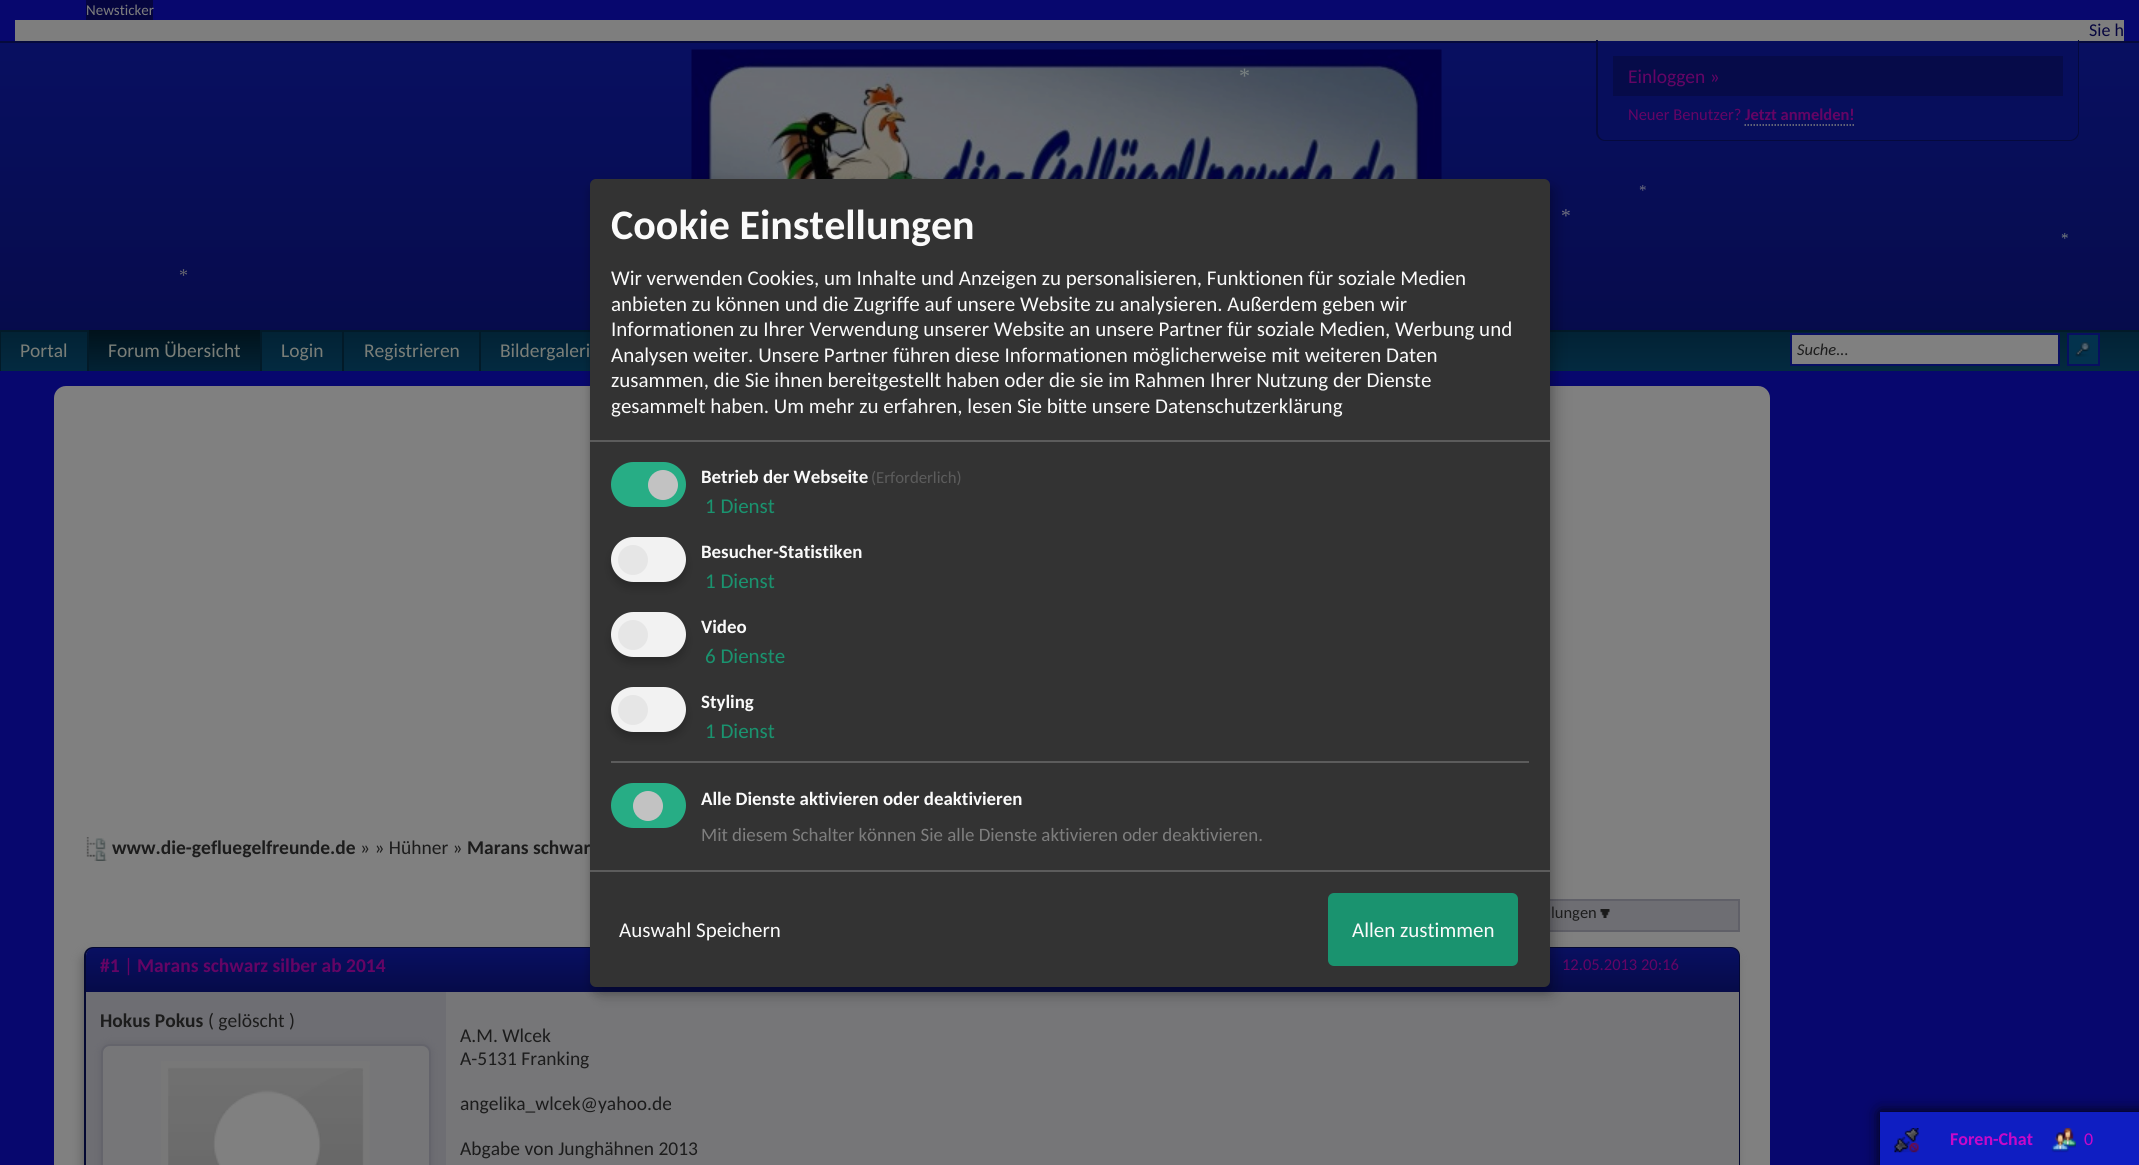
#include <cairo.h>
#include <math.h>
#include <stddef.h>

static cairo_t *ctx;

static void use_color(int r, int g, int b) {
    cairo_set_source_rgb(ctx, r / 255.0, g / 255.0, b / 255.0);
}

static void round_rect(double x, double y, double w, double h, double r) {
    cairo_new_sub_path(ctx);
    cairo_arc(ctx, x + w - r, y + h - r, r, 0, M_PI / 2);
    cairo_arc(ctx, x + r, y + h - r, r, M_PI / 2, M_PI);
    cairo_arc(ctx, x + r, y + r, r, M_PI, 1.5 * M_PI);
    cairo_arc(ctx, x + w - r, y + r, r, 1.5 * M_PI, 2 * M_PI);
    cairo_close_path(ctx);
}

static void shadow(double x, double y, double w, double h, double r, double blur, double alpha) {
    cairo_push_group_with_content(ctx, CAIRO_CONTENT_ALPHA);
    cairo_set_operator(ctx, CAIRO_OPERATOR_SOURCE);
    for (int i = 15; i >= -15 && fmin(w, h) + blur * i / 3 > 0; i -= 2) {
        double e = blur * i / 6;
        cairo_set_source_rgba(ctx, 0, 0, 0, alpha * erfc((i - 1) / 8.5) / 2);
        round_rect(x - e, y - e, w + 2 * e, h + 2 * e, fmax(0, fmin(r + e + blur * .6, fmin(w, h) / 2 + e)));
        cairo_fill(ctx);
    }
    cairo_pattern_t *soft = cairo_pop_group(ctx);
    cairo_mask(ctx, soft);
    cairo_pattern_destroy(soft);
}

static void picture(const char *path, double x, double y, double w, double h) {
    cairo_surface_t *image = cairo_image_surface_create_from_png(path);
    cairo_save(ctx);
    cairo_set_source_surface(ctx, image, x, y);
    cairo_rectangle(ctx, x, y, w, h);
    cairo_fill(ctx);
    cairo_restore(ctx);
    cairo_surface_destroy(image);
}

int main(void) {
    cairo_surface_t *surface = cairo_image_surface_create(CAIRO_FORMAT_RGB24, 2139, 1165);
    ctx = cairo_create(surface);
    cairo_font_options_t *options = cairo_font_options_create();
    cairo_font_options_set_hint_metrics(options, CAIRO_HINT_METRICS_OFF);
    cairo_font_options_set_hint_style(options, CAIRO_HINT_STYLE_NONE);
    cairo_set_font_options(ctx, options);
    cairo_set_miter_limit(ctx, 4);
    cairo_pattern_t *gradient;
    use_color(7, 7, 110);
    cairo_paint(ctx);
    use_color(5, 5, 63);
    cairo_rectangle(ctx, 86, 0, 67, 20);
    cairo_fill(ctx);
    cairo_select_font_face(ctx, "Carlito", CAIRO_FONT_SLANT_NORMAL, CAIRO_FONT_WEIGHT_NORMAL);
    cairo_set_font_size(ctx, 15);
    use_color(126, 126, 126);
    cairo_move_to(ctx, 86, 15);
    cairo_show_text(ctx, "Newsticker");
    cairo_rectangle(ctx, 15, 20, 2109, 21);
    cairo_fill(ctx);
    cairo_set_font_size(ctx, 18);
    use_color(7, 6, 63);
    cairo_move_to(ctx, 2089, 36);
    cairo_show_text(ctx, "Sie h");
    gradient = cairo_pattern_create_linear(0, 42, 0, 371);
    cairo_pattern_add_color_stop_rgba(gradient, 0, 0.031, 0.059, 0.38, 1);
    cairo_pattern_add_color_stop_rgba(gradient, 1, 0.024, 0.043, 0.286, 1);
    cairo_set_source(ctx, gradient);
    cairo_pattern_destroy(gradient);
    cairo_rectangle(ctx, 0, 43, 2139, 287);
    cairo_fill(ctx);
    picture("img1.png", 691, 49, 751, 130);
    cairo_select_font_face(ctx, "Liberation Serif", CAIRO_FONT_SLANT_NORMAL, CAIRO_FONT_WEIGHT_NORMAL);
    cairo_set_font_size(ctx, 22);
    use_color(120, 128, 128);
    cairo_move_to(ctx, 1239, 83);
    cairo_show_text(ctx, "*");
    use_color(5, 10, 61);
    cairo_rectangle(ctx, 0, 41, 2139, 2);
    cairo_fill(ctx);
    use_color(7, 14, 92);
    cairo_new_path(ctx);
    cairo_move_to(ctx, 1596, 41);
    cairo_line_to(ctx, 2079, 41);
    cairo_line_to(ctx, 2079, 132);
    cairo_curve_to(ctx, 2079, 137, 2075, 141, 2070, 141);
    cairo_line_to(ctx, 1605, 141);
    cairo_curve_to(ctx, 1600, 141, 1596, 137, 1596, 132);
    cairo_close_path(ctx);
    cairo_fill(ctx);
    use_color(5, 10, 61);
    cairo_set_fill_rule(ctx, CAIRO_FILL_RULE_EVEN_ODD);
    cairo_new_path(ctx);
    cairo_move_to(ctx, 1596, 40);
    cairo_line_to(ctx, 2079, 40);
    cairo_line_to(ctx, 2079, 132);
    cairo_curve_to(ctx, 2079, 137, 2075, 141, 2070, 141);
    cairo_line_to(ctx, 1605, 141);
    cairo_curve_to(ctx, 1600, 141, 1596, 137, 1596, 132);
    cairo_close_path(ctx);
    cairo_move_to(ctx, 1598, 40);
    cairo_line_to(ctx, 2078, 40);
    cairo_line_to(ctx, 2078, 132);
    cairo_curve_to(ctx, 2078, 136, 2074, 140, 2070, 140);
    cairo_line_to(ctx, 1605, 140);
    cairo_curve_to(ctx, 1601, 140, 1598, 136, 1598, 132);
    cairo_close_path(ctx);
    cairo_fill(ctx);
    use_color(6, 11, 73);
    cairo_rectangle(ctx, 1613, 56, 450, 40);
    cairo_fill(ctx);
    cairo_select_font_face(ctx, "Carlito", CAIRO_FONT_SLANT_NORMAL, CAIRO_FONT_WEIGHT_NORMAL);
    cairo_set_font_size(ctx, 19.5);
    use_color(101, 4, 101);
    cairo_move_to(ctx, 1628, 83);
    cairo_show_text(ctx, "Einloggen »");
    cairo_set_font_size(ctx, 16.5);
    cairo_move_to(ctx, 1628, 120);
    cairo_show_text(ctx, "Neuer Benutzer?");
    cairo_select_font_face(ctx, "Carlito", CAIRO_FONT_SLANT_NORMAL, CAIRO_FONT_WEIGHT_BOLD);
    cairo_move_to(ctx, 1745, 120);
    cairo_show_text(ctx, "Jetzt anmelden!");
    cairo_new_path(ctx);
    cairo_move_to(ctx, 1744.5, 125);
    cairo_line_to(ctx, 1854, 125);
    use_color(128, 128, 128);
    cairo_set_line_width(ctx, 1.5);
    cairo_set_dash(ctx, (double[]){1.5, 1.5}, 2, 0);
    cairo_stroke(ctx);
    gradient = cairo_pattern_create_linear(0, 330, 0, 371);
    cairo_pattern_add_color_stop_rgba(gradient, 0, 0.008, 0.133, 0.204, 1);
    cairo_pattern_add_color_stop_rgba(gradient, 1, 0.012, 0.165, 0.251, 1);
    cairo_set_source(ctx, gradient);
    cairo_pattern_destroy(gradient);
    cairo_rectangle(ctx, 1, 332, 2138, 39);
    cairo_fill(ctx);
    use_color(2, 26, 40);
    cairo_rectangle(ctx, 0, 330, 2139, 2);
    cairo_fill(ctx);
    cairo_rectangle(ctx, 0, 330, 1, 41);
    cairo_fill(ctx);
    cairo_select_font_face(ctx, "Carlito", CAIRO_FONT_SLANT_NORMAL, CAIRO_FONT_WEIGHT_NORMAL);
    cairo_set_font_size(ctx, 19.5);
    use_color(122, 126, 120);
    cairo_move_to(ctx, 20, 357);
    cairo_show_text(ctx, "Portal");
    gradient = cairo_pattern_create_linear(89, 330, 89, 371);
    cairo_pattern_add_color_stop_rgba(gradient, 0, 0.004, 0.071, 0.106, 1);
    cairo_pattern_add_color_stop_rgba(gradient, 1, 0.008, 0.133, 0.204, 1);
    cairo_set_source(ctx, gradient);
    cairo_pattern_destroy(gradient);
    cairo_rectangle(ctx, 89, 330, 171, 41);
    cairo_fill(ctx);
    use_color(2, 26, 40);
    cairo_rectangle(ctx, 260, 330, 2, 41);
    cairo_fill(ctx);
    cairo_rectangle(ctx, 87, 330, 2, 41);
    cairo_fill(ctx);
    use_color(122, 126, 120);
    cairo_move_to(ctx, 108, 357);
    cairo_show_text(ctx, "Forum Übersicht");
    cairo_move_to(ctx, 281, 357);
    cairo_show_text(ctx, "Login");
    use_color(2, 26, 40);
    cairo_rectangle(ctx, 342, 330, 2, 41);
    cairo_fill(ctx);
    use_color(122, 126, 120);
    cairo_move_to(ctx, 364, 357);
    cairo_show_text(ctx, "Registrieren");
    use_color(2, 26, 40);
    cairo_rectangle(ctx, 479, 330, 2, 41);
    cairo_fill(ctx);
    use_color(122, 126, 120);
    cairo_move_to(ctx, 500, 357);
    cairo_show_text(ctx, "Bildergaleri");
    use_color(128, 128, 128);
    cairo_rectangle(ctx, 1791, 334, 268, 31);
    cairo_fill_preserve(ctx);
    use_color(8, 15, 97);
    cairo_set_line_width(ctx, 2);
    cairo_set_dash(ctx, NULL, 0, 0);
    cairo_stroke(ctx);
    cairo_select_font_face(ctx, "Carlito", CAIRO_FONT_SLANT_ITALIC, CAIRO_FONT_WEIGHT_NORMAL);
    cairo_set_font_size(ctx, 16.5);
    use_color(28, 28, 28);
    cairo_move_to(ctx, 1797, 355);
    cairo_show_text(ctx, "Suche...");
    use_color(3, 50, 77);
    cairo_rectangle(ctx, 2069, 335, 29, 29);
    cairo_fill(ctx);
    picture("img2.png", 2075, 342, 15, 15);
    cairo_rectangle(ctx, 2068, 334, 31, 31);
    use_color(8, 15, 97);
    cairo_stroke(ctx);
    cairo_select_font_face(ctx, "Liberation Serif", CAIRO_FONT_SLANT_NORMAL, CAIRO_FONT_WEIGHT_NORMAL);
    cairo_set_font_size(ctx, 15);
    use_color(111, 111, 128);
    cairo_move_to(ctx, 1639, 195);
    cairo_show_text(ctx, "*");
    use_color(128, 128, 128);
    round_rect(54, 386, 1716, 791, 12);
    cairo_fill(ctx);
    use_color(110, 110, 115);
    cairo_rectangle(ctx, 1550, 901, 188, 29);
    cairo_fill(ctx);
    cairo_rectangle(ctx, 1137, 900, 602, 31);
    use_color(96, 96, 104);
    cairo_stroke(ctx);
    use_color(102, 102, 102);
    shadow(81, 953, 1656, 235, 9, 4.5, 1);
    cairo_new_path(ctx);
    cairo_move_to(ctx, 93, 948);
    cairo_line_to(ctx, 1731, 948);
    cairo_curve_to(ctx, 1735.5, 948, 1739, 951.5, 1739, 956);
    cairo_line_to(ctx, 1739, 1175);
    cairo_line_to(ctx, 85, 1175);
    cairo_line_to(ctx, 85, 956);
    cairo_curve_to(ctx, 85, 951.5, 88.5, 948, 93, 948);
    cairo_close_path(ctx);
    use_color(4, 8, 50);
    cairo_stroke(ctx);
    gradient = cairo_pattern_create_linear(86, 948, 86, 992);
    cairo_pattern_add_color_stop_rgba(gradient, 0, 0.031, 0.059, 0.38, 1);
    cairo_pattern_add_color_stop_rgba(gradient, 1, 0.024, 0.043, 0.286, 1);
    cairo_set_source(ctx, gradient);
    cairo_pattern_destroy(gradient);
    cairo_new_path(ctx);
    cairo_move_to(ctx, 94, 948);
    cairo_line_to(ctx, 1731, 948);
    cairo_curve_to(ctx, 1735.5, 948, 1739, 951.5, 1739, 956);
    cairo_line_to(ctx, 1739, 992);
    cairo_line_to(ctx, 86, 992);
    cairo_line_to(ctx, 86, 956);
    cairo_curve_to(ctx, 86, 951.5, 89.5, 948, 94, 948);
    cairo_close_path(ctx);
    cairo_fill(ctx);
    use_color(118, 118, 120);
    cairo_rectangle(ctx, 446, 992, 1293, 173);
    cairo_fill(ctx);
    use_color(0, 0, 0);
    shadow(597, 186, 960, 809, 6, 7.5, 0.19);
    shadow(590, 185, 960, 808, 6, 4.5, 0.2);
    cairo_select_font_face(ctx, "Carlito", CAIRO_FONT_SLANT_NORMAL, CAIRO_FONT_WEIGHT_BOLD);
    cairo_set_font_size(ctx, 19.5);
    use_color(28, 28, 28);
    cairo_move_to(ctx, 467, 854);
    cairo_show_text(ctx, "Marans schwar");
    use_color(51, 51, 51);
    round_rect(590, 179, 960, 808, 6);
    cairo_fill(ctx);
    use_color(92, 92, 92);
    cairo_rectangle(ctx, 590, 440, 960, 2);
    cairo_fill(ctx);
    cairo_set_font_size(ctx, 42);
    use_color(250, 250, 250);
    cairo_move_to(ctx, 611, 239);
    cairo_show_text(ctx, "Cookie Einstellungen");
    cairo_select_font_face(ctx, "Carlito", CAIRO_FONT_SLANT_NORMAL, CAIRO_FONT_WEIGHT_NORMAL);
    cairo_set_font_size(ctx, 21);
    cairo_move_to(ctx, 611, 285);
    cairo_show_text(ctx, "Wir verwenden Cookies, um Inhalte und Anzeigen zu personalisieren, Funktionen für soziale Medien");
    cairo_move_to(ctx, 611, 311);
    cairo_show_text(ctx, "anbieten zu können und die Zugriffe auf unsere Website zu analysieren. Außerdem geben wir");
    cairo_move_to(ctx, 611, 336);
    cairo_show_text(ctx, "Informationen zu Ihrer Verwendung unserer Website an unsere Partner für soziale Medien, Werbung und");
    cairo_move_to(ctx, 611, 362);
    cairo_show_text(ctx, "Analysen weiter. Unsere Partner führen diese Informationen möglicherweise mit weiteren Daten");
    cairo_move_to(ctx, 611, 387);
    cairo_show_text(ctx, "zusammen, die Sie ihnen bereitgestellt haben oder die sie im Rahmen Ihrer Nutzung der Dienste");
    cairo_move_to(ctx, 611, 413);
    cairo_show_text(ctx, "gesammelt haben. Um mehr zu erfahren, lesen Sie bitte unsere Datenschutzerklärung");
    use_color(39, 173, 133);
    round_rect(611, 462, 75, 45, 22.5);
    cairo_fill(ctx);
    use_color(194, 194, 194);
    cairo_arc(ctx, 663, 485, 15, 0, 2 * M_PI);
    cairo_fill(ctx);
    cairo_select_font_face(ctx, "Carlito", CAIRO_FONT_SLANT_NORMAL, CAIRO_FONT_WEIGHT_BOLD);
    cairo_set_font_size(ctx, 18.9);
    use_color(250, 250, 250);
    cairo_move_to(ctx, 701, 483);
    cairo_show_text(ctx, "Betrieb der Webseite");
    cairo_select_font_face(ctx, "Carlito", CAIRO_FONT_SLANT_NORMAL, CAIRO_FONT_WEIGHT_NORMAL);
    cairo_set_font_size(ctx, 16.75);
    use_color(92, 92, 92);
    cairo_move_to(ctx, 871, 483);
    cairo_show_text(ctx, "(Erforderlich)");
    cairo_set_font_size(ctx, 21);
    use_color(26, 147, 111);
    cairo_move_to(ctx, 705, 513);
    cairo_show_text(ctx, "1 Dienst");
    use_color(0, 0, 0);
    shadow(611, 543, 75, 45, 22.5, 4.5, 0.2);
    use_color(242, 242, 242);
    round_rect(611, 537, 75, 45, 22.5);
    cairo_fill(ctx);
    use_color(230, 230, 230);
    cairo_arc(ctx, 633, 560, 15, 0, 2 * M_PI);
    cairo_fill(ctx);
    cairo_select_font_face(ctx, "Carlito", CAIRO_FONT_SLANT_NORMAL, CAIRO_FONT_WEIGHT_BOLD);
    cairo_set_font_size(ctx, 18.9);
    use_color(250, 250, 250);
    cairo_move_to(ctx, 701, 558);
    cairo_show_text(ctx, "Besucher-Statistiken");
    cairo_select_font_face(ctx, "Carlito", CAIRO_FONT_SLANT_NORMAL, CAIRO_FONT_WEIGHT_NORMAL);
    cairo_set_font_size(ctx, 21);
    use_color(26, 147, 111);
    cairo_move_to(ctx, 705, 588);
    cairo_show_text(ctx, "1 Dienst");
    use_color(0, 0, 0);
    shadow(611, 618, 75, 45, 22.5, 4.5, 0.2);
    use_color(242, 242, 242);
    round_rect(611, 612, 75, 45, 22.5);
    cairo_fill(ctx);
    use_color(230, 230, 230);
    cairo_arc(ctx, 633, 635, 15, 0, 2 * M_PI);
    cairo_fill(ctx);
    cairo_select_font_face(ctx, "Carlito", CAIRO_FONT_SLANT_NORMAL, CAIRO_FONT_WEIGHT_BOLD);
    cairo_set_font_size(ctx, 18.9);
    use_color(250, 250, 250);
    cairo_move_to(ctx, 701, 633);
    cairo_show_text(ctx, "Video");
    cairo_select_font_face(ctx, "Carlito", CAIRO_FONT_SLANT_NORMAL, CAIRO_FONT_WEIGHT_NORMAL);
    cairo_set_font_size(ctx, 21);
    use_color(26, 147, 111);
    cairo_move_to(ctx, 705, 663);
    cairo_show_text(ctx, "6 Dienste");
    use_color(0, 0, 0);
    shadow(611, 693, 75, 45, 22.5, 4.5, 0.2);
    use_color(242, 242, 242);
    round_rect(611, 687, 75, 45, 22.5);
    cairo_fill(ctx);
    use_color(230, 230, 230);
    cairo_arc(ctx, 633, 710, 15, 0, 2 * M_PI);
    cairo_fill(ctx);
    cairo_select_font_face(ctx, "Carlito", CAIRO_FONT_SLANT_NORMAL, CAIRO_FONT_WEIGHT_BOLD);
    cairo_set_font_size(ctx, 18.9);
    use_color(250, 250, 250);
    cairo_move_to(ctx, 701, 708);
    cairo_show_text(ctx, "Styling");
    cairo_select_font_face(ctx, "Carlito", CAIRO_FONT_SLANT_NORMAL, CAIRO_FONT_WEIGHT_NORMAL);
    cairo_set_font_size(ctx, 21);
    use_color(26, 147, 111);
    cairo_move_to(ctx, 705, 738);
    cairo_show_text(ctx, "1 Dienst");
    use_color(92, 92, 92);
    cairo_rectangle(ctx, 611, 761, 918, 2);
    cairo_fill(ctx);
    use_color(39, 173, 133);
    round_rect(611, 783, 75, 45, 22.5);
    cairo_fill(ctx);
    use_color(194, 194, 194);
    cairo_arc(ctx, 648, 806, 15, 0, 2 * M_PI);
    cairo_fill(ctx);
    cairo_select_font_face(ctx, "Carlito", CAIRO_FONT_SLANT_NORMAL, CAIRO_FONT_WEIGHT_BOLD);
    cairo_set_font_size(ctx, 18.9);
    use_color(250, 250, 250);
    cairo_move_to(ctx, 701, 805);
    cairo_show_text(ctx, "Alle Dienste aktivieren oder deaktivieren");
    cairo_select_font_face(ctx, "Carlito", CAIRO_FONT_SLANT_NORMAL, CAIRO_FONT_WEIGHT_NORMAL);
    use_color(126, 126, 126);
    cairo_move_to(ctx, 701, 841);
    cairo_show_text(ctx, "Mit diesem Schalter können Sie alle Dienste aktivieren oder deaktivieren.");
    use_color(92, 92, 92);
    cairo_rectangle(ctx, 590, 870, 960, 2);
    cairo_fill(ctx);
    cairo_set_font_size(ctx, 21);
    use_color(250, 250, 250);
    cairo_move_to(ctx, 619, 937);
    cairo_show_text(ctx, "Auswahl Speichern");
    use_color(26, 147, 111);
    round_rect(1328, 893, 190, 73, 6);
    cairo_fill(ctx);
    use_color(250, 250, 250);
    cairo_move_to(ctx, 1352, 937);
    cairo_show_text(ctx, "Allen zustimmen");
    cairo_select_font_face(ctx, "Liberation Serif", CAIRO_FONT_SLANT_NORMAL, CAIRO_FONT_WEIGHT_NORMAL);
    cairo_set_font_size(ctx, 19.5);
    use_color(111, 111, 128);
    cairo_move_to(ctx, 1561, 222);
    cairo_show_text(ctx, "*");
    cairo_set_font_size(ctx, 15);
    use_color(120, 128, 128);
    cairo_move_to(ctx, 2061, 243);
    cairo_show_text(ctx, "*");
    cairo_set_font_size(ctx, 18);
    use_color(102, 102, 111);
    cairo_move_to(ctx, 179, 281);
    cairo_show_text(ctx, "*");
    picture("img3.png", 86, 837, 21, 24);
    cairo_select_font_face(ctx, "Carlito", CAIRO_FONT_SLANT_NORMAL, CAIRO_FONT_WEIGHT_BOLD);
    cairo_set_font_size(ctx, 19.5);
    use_color(28, 28, 28);
    cairo_move_to(ctx, 112, 854);
    cairo_show_text(ctx, "www.die-gefluegelfreunde.de");
    cairo_select_font_face(ctx, "Carlito", CAIRO_FONT_SLANT_NORMAL, CAIRO_FONT_WEIGHT_NORMAL);
    cairo_move_to(ctx, 360, 854);
    cairo_show_text(ctx, "» » Hühner »");
    cairo_set_font_size(ctx, 16.5);
    cairo_move_to(ctx, 1551, 918);
    cairo_show_text(ctx, "lungen");
    picture("img4.png", 1600, 909, 10, 9);
    cairo_select_font_face(ctx, "Carlito", CAIRO_FONT_SLANT_NORMAL, CAIRO_FONT_WEIGHT_BOLD);
    cairo_set_font_size(ctx, 19.5);
    use_color(101, 4, 101);
    cairo_move_to(ctx, 100, 972);
    cairo_show_text(ctx, "#1");
    cairo_select_font_face(ctx, "Carlito", CAIRO_FONT_SLANT_NORMAL, CAIRO_FONT_WEIGHT_NORMAL);
    cairo_move_to(ctx, 124, 972);
    cairo_show_text(ctx, "|");
    cairo_select_font_face(ctx, "Carlito", CAIRO_FONT_SLANT_NORMAL, CAIRO_FONT_WEIGHT_BOLD);
    cairo_move_to(ctx, 137, 972);
    cairo_show_text(ctx, "Marans schwarz silber ab 2014");
    cairo_select_font_face(ctx, "Carlito", CAIRO_FONT_SLANT_NORMAL, CAIRO_FONT_WEIGHT_NORMAL);
    cairo_set_font_size(ctx, 16.5);
    cairo_move_to(ctx, 1562, 970);
    cairo_show_text(ctx, "12.05.2013 20:16");
    use_color(110, 110, 115);
    cairo_rectangle(ctx, 86, 992, 360, 173);
    cairo_fill(ctx);
    cairo_select_font_face(ctx, "Carlito", CAIRO_FONT_SLANT_NORMAL, CAIRO_FONT_WEIGHT_BOLD);
    cairo_set_font_size(ctx, 19.5);
    use_color(28, 28, 28);
    cairo_move_to(ctx, 100, 1027);
    cairo_show_text(ctx, "Hokus Pokus");
    cairo_select_font_face(ctx, "Carlito", CAIRO_FONT_SLANT_NORMAL, CAIRO_FONT_WEIGHT_NORMAL);
    cairo_move_to(ctx, 208, 1027);
    cairo_show_text(ctx, "( gelöscht )");
    use_color(100, 100, 107);
    shadow(101, 1044, 330, 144, 9, 4.5, 1);
    use_color(118, 118, 120);
    cairo_new_path(ctx);
    cairo_move_to(ctx, 110, 1045);
    cairo_line_to(ctx, 422, 1045);
    cairo_curve_to(ctx, 426.5, 1045, 430, 1048.5, 430, 1053);
    cairo_line_to(ctx, 430, 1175);
    cairo_line_to(ctx, 102, 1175);
    cairo_line_to(ctx, 102, 1053);
    cairo_curve_to(ctx, 102, 1048.5, 105.5, 1045, 110, 1045);
    cairo_close_path(ctx);
    cairo_fill_preserve(ctx);
    use_color(100, 100, 107);
    cairo_stroke(ctx);
    picture("img5.png", 161, 1061, 209, 104);
    use_color(28, 28, 28);
    cairo_move_to(ctx, 460, 1042);
    cairo_show_text(ctx, "A.M. Wlcek");
    cairo_move_to(ctx, 460, 1065);
    cairo_show_text(ctx, "A-5131 Franking");
    cairo_move_to(ctx, 460, 1110);
    cairo_show_text(ctx, "angelika_wlcek@yahoo.de");
    cairo_move_to(ctx, 460, 1155);
    cairo_show_text(ctx, "Abgabe von Junghähnen 2013");
    use_color(4, 4, 4);
    shadow(1880, 1112, 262, 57, 0, 7.5, 1);
    use_color(15, 30, 194);
    cairo_rectangle(ctx, 1880, 1112, 259, 53);
    cairo_fill(ctx);
    picture("img6.png", 1894, 1128, 25, 25);
    cairo_select_font_face(ctx, "Carlito", CAIRO_FONT_SLANT_NORMAL, CAIRO_FONT_WEIGHT_BOLD);
    cairo_set_font_size(ctx, 18);
    use_color(201, 8, 201);
    cairo_move_to(ctx, 1950, 1145);
    cairo_show_text(ctx, "Foren-Chat");
    picture("img7.png", 2051, 1128, 25, 25);
    cairo_select_font_face(ctx, "Carlito", CAIRO_FONT_SLANT_NORMAL, CAIRO_FONT_WEIGHT_NORMAL);
    cairo_move_to(ctx, 2084, 1145);
    cairo_show_text(ctx, "0");
    cairo_surface_write_to_png(surface, "result.png");
    cairo_font_options_destroy(options);
    cairo_destroy(ctx);
    cairo_surface_destroy(surface);
    return 0;
}
